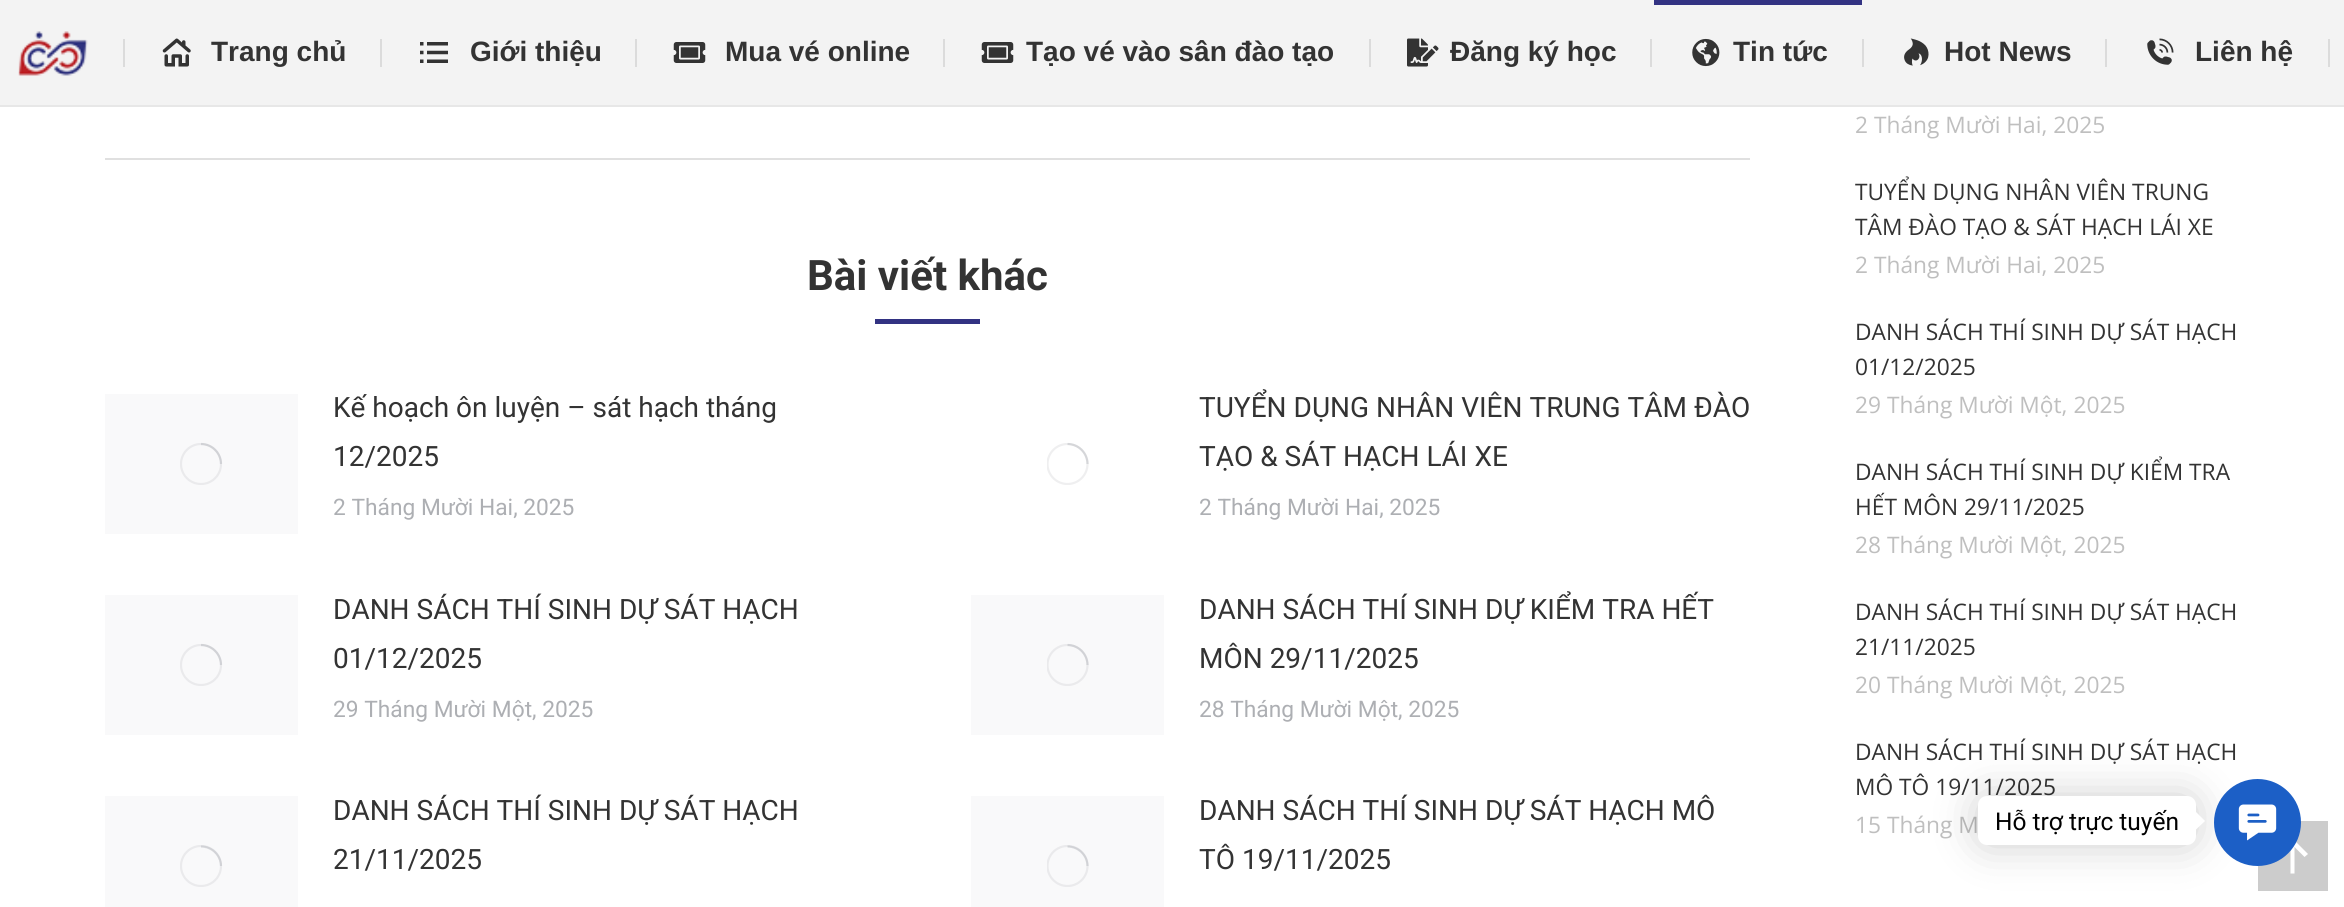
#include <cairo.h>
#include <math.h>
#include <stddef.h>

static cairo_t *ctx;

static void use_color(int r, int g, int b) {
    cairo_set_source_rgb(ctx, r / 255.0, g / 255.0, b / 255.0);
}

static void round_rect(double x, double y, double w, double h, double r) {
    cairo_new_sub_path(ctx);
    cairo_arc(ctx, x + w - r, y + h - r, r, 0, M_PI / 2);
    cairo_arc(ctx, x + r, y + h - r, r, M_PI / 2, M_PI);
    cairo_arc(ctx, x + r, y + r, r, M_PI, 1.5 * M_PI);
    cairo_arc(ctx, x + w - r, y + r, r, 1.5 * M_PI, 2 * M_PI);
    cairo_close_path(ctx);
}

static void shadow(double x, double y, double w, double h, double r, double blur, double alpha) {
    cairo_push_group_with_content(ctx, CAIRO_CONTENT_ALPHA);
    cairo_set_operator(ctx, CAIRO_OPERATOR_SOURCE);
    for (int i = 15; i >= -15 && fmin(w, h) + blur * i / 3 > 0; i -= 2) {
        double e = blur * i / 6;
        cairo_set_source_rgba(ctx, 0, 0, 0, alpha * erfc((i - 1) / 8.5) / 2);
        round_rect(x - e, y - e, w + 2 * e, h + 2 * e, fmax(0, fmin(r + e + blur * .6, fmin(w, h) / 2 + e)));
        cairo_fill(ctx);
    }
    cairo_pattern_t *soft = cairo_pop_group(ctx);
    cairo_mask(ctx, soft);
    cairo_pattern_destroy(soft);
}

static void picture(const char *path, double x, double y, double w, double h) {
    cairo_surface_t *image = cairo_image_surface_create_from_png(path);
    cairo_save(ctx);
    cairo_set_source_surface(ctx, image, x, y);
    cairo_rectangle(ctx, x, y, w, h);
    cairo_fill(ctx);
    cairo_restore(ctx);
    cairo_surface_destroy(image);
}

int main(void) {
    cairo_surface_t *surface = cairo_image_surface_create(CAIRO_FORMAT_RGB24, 2344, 907);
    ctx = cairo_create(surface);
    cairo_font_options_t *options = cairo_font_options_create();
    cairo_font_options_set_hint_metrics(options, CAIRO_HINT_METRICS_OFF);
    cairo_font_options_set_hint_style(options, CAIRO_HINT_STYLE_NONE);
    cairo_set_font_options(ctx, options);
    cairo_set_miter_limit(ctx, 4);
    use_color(255, 255, 255);
    cairo_paint(ctx);
    use_color(243, 243, 243);
    cairo_rectangle(ctx, 0, 0, 2344, 105);
    cairo_fill(ctx);
    use_color(231, 231, 231);
    cairo_rectangle(ctx, 0, 105, 2344, 2);
    cairo_fill(ctx);
    picture("img1.png", 18, 31, 70, 45);
    use_color(219, 219, 219);
    cairo_rectangle(ctx, 123, 39, 2, 28);
    cairo_fill(ctx);
    picture("img2.png", 162, 38, 29, 29);
    cairo_select_font_face(ctx, "Liberation Sans", CAIRO_FONT_SLANT_NORMAL, CAIRO_FONT_WEIGHT_BOLD);
    cairo_set_font_size(ctx, 28);
    use_color(51, 51, 51);
    cairo_move_to(ctx, 211, 61);
    cairo_show_text(ctx, "Trang chủ");
    use_color(219, 219, 219);
    cairo_rectangle(ctx, 380, 39, 2, 28);
    cairo_fill(ctx);
    picture("img3.png", 420, 42, 28, 21);
    use_color(51, 51, 51);
    cairo_move_to(ctx, 470, 61);
    cairo_show_text(ctx, "Giới thiệu");
    use_color(219, 219, 219);
    cairo_rectangle(ctx, 635, 39, 2, 28);
    cairo_fill(ctx);
    picture("img4.png", 673, 42, 33, 21);
    use_color(51, 51, 51);
    cairo_move_to(ctx, 725, 61);
    cairo_show_text(ctx, "Mua vé online");
    use_color(219, 219, 219);
    cairo_rectangle(ctx, 943, 39, 2, 28);
    cairo_fill(ctx);
    picture("img4.png", 981, 42, 33, 21);
    use_color(51, 51, 51);
    cairo_move_to(ctx, 1026, 61);
    cairo_show_text(ctx, "Tạo vé vào sân đào tạo");
    use_color(219, 219, 219);
    cairo_rectangle(ctx, 1369, 39, 2, 28);
    cairo_fill(ctx);
    picture("img5.png", 1407, 38, 32, 29);
    use_color(51, 51, 51);
    cairo_move_to(ctx, 1450, 61);
    cairo_show_text(ctx, "Đăng ký học");
    use_color(219, 219, 219);
    cairo_rectangle(ctx, 1650, 39, 2, 28);
    cairo_fill(ctx);
    use_color(50, 50, 130);
    cairo_rectangle(ctx, 1654, 0, 208, 5);
    cairo_fill(ctx);
    picture("img6.png", 1692, 38, 28, 29);
    use_color(51, 51, 51);
    cairo_move_to(ctx, 1733, 61);
    cairo_show_text(ctx, "Tin tức");
    use_color(219, 219, 219);
    cairo_rectangle(ctx, 1862, 39, 2, 28);
    cairo_fill(ctx);
    picture("img7.png", 1904, 38, 25, 28);
    use_color(51, 51, 51);
    cairo_move_to(ctx, 1944, 61);
    cairo_show_text(ctx, "Hot News");
    use_color(219, 219, 219);
    cairo_rectangle(ctx, 2105, 39, 2, 28);
    cairo_fill(ctx);
    picture("img8.png", 2147, 38, 27, 27);
    use_color(51, 51, 51);
    cairo_move_to(ctx, 2195, 61);
    cairo_show_text(ctx, "Liên hệ");
    use_color(219, 219, 219);
    cairo_rectangle(ctx, 2328, 39, 2, 28);
    cairo_fill(ctx);
    use_color(224, 224, 224);
    cairo_rectangle(ctx, 105, 158, 1645, 2);
    cairo_fill(ctx);
    cairo_select_font_face(ctx, "Roboto", CAIRO_FONT_SLANT_NORMAL, CAIRO_FONT_WEIGHT_BOLD);
    cairo_set_font_size(ctx, 42);
    use_color(51, 51, 51);
    cairo_move_to(ctx, 807, 290);
    cairo_show_text(ctx, "Bài viết khác");
    use_color(50, 50, 130);
    cairo_rectangle(ctx, 875, 319, 105, 5);
    cairo_fill(ctx);
    use_color(249, 249, 250);
    cairo_rectangle(ctx, 105, 394, 193, 140);
    cairo_fill(ctx);
    cairo_save(ctx);
    cairo_rectangle(ctx, 180, 443, 42, 42);
    cairo_clip(ctx);
    cairo_arc(ctx, 201, 464, 20, 0, 2 * M_PI);
    use_color(234, 234, 236);
    cairo_set_line_width(ctx, 2.2);
    cairo_stroke(ctx);
    cairo_restore(ctx);
    cairo_new_path(ctx);
    cairo_move_to(ctx, 221, 464);
    cairo_curve_to(ctx, 221, 453, 212, 444, 201, 444);
    cairo_set_source_rgba(ctx, 0.545, 0.553, 0.58, 0.25);
    cairo_set_line_width(ctx, 2.2);
    cairo_stroke(ctx);
    cairo_select_font_face(ctx, "Roboto", CAIRO_FONT_SLANT_NORMAL, CAIRO_FONT_WEIGHT_NORMAL);
    cairo_set_font_size(ctx, 28);
    use_color(51, 51, 51);
    cairo_move_to(ctx, 333, 417);
    cairo_show_text(ctx, "Kế hoạch ôn luyện – sát hạch tháng");
    cairo_move_to(ctx, 333, 466);
    cairo_show_text(ctx, "12/2025");
    cairo_set_font_size(ctx, 22.75);
    use_color(173, 175, 179);
    cairo_move_to(ctx, 333, 515);
    cairo_show_text(ctx, "2 Tháng Mười Hai, 2025");
    cairo_save(ctx);
    cairo_rectangle(ctx, 1047, 443, 42, 42);
    cairo_clip(ctx);
    cairo_arc(ctx, 1067.5, 464, 20, 0, 2 * M_PI);
    use_color(239, 239, 240);
    cairo_stroke(ctx);
    cairo_restore(ctx);
    cairo_new_path(ctx);
    cairo_move_to(ctx, 1087.5, 464);
    cairo_curve_to(ctx, 1087.5, 453, 1078.5, 444, 1067.5, 444);
    cairo_set_source_rgba(ctx, 0.545, 0.553, 0.58, 0.25);
    cairo_stroke(ctx);
    cairo_set_font_size(ctx, 28);
    use_color(51, 51, 51);
    cairo_move_to(ctx, 1199, 417);
    cairo_show_text(ctx, "TUYỂN DỤNG NHÂN VIÊN TRUNG TÂM ĐÀO");
    cairo_move_to(ctx, 1199, 466);
    cairo_show_text(ctx, "TẠO & SÁT HẠCH LÁI XE");
    cairo_set_font_size(ctx, 22.75);
    use_color(173, 175, 179);
    cairo_move_to(ctx, 1199, 515);
    cairo_show_text(ctx, "2 Tháng Mười Hai, 2025");
    use_color(249, 249, 250);
    cairo_rectangle(ctx, 105, 595, 193, 140);
    cairo_fill(ctx);
    cairo_save(ctx);
    cairo_rectangle(ctx, 180, 644, 42, 42);
    cairo_clip(ctx);
    cairo_arc(ctx, 201, 665, 20, 0, 2 * M_PI);
    use_color(234, 234, 236);
    cairo_stroke(ctx);
    cairo_restore(ctx);
    cairo_new_path(ctx);
    cairo_move_to(ctx, 221, 665);
    cairo_curve_to(ctx, 221, 654, 212, 645, 201, 645);
    cairo_set_source_rgba(ctx, 0.545, 0.553, 0.58, 0.25);
    cairo_stroke(ctx);
    cairo_set_font_size(ctx, 28);
    use_color(51, 51, 51);
    cairo_move_to(ctx, 333, 619);
    cairo_show_text(ctx, "DANH SÁCH THÍ SINH DỰ SÁT HẠCH");
    cairo_move_to(ctx, 333, 668);
    cairo_show_text(ctx, "01/12/2025");
    cairo_set_font_size(ctx, 22.75);
    use_color(173, 175, 179);
    cairo_move_to(ctx, 333, 717);
    cairo_show_text(ctx, "29 Tháng Mười Một, 2025");
    use_color(249, 249, 250);
    cairo_rectangle(ctx, 971, 595, 193, 140);
    cairo_fill(ctx);
    cairo_save(ctx);
    cairo_rectangle(ctx, 1047, 644, 42, 42);
    cairo_clip(ctx);
    cairo_arc(ctx, 1067.5, 665, 20, 0, 2 * M_PI);
    use_color(234, 234, 236);
    cairo_stroke(ctx);
    cairo_restore(ctx);
    cairo_new_path(ctx);
    cairo_move_to(ctx, 1087.5, 665);
    cairo_curve_to(ctx, 1087.5, 654, 1078.5, 645, 1067.5, 645);
    cairo_set_source_rgba(ctx, 0.545, 0.553, 0.58, 0.25);
    cairo_stroke(ctx);
    cairo_set_font_size(ctx, 28);
    use_color(51, 51, 51);
    cairo_move_to(ctx, 1199, 619);
    cairo_show_text(ctx, "DANH SÁCH THÍ SINH DỰ KIỂM TRA HẾT");
    cairo_move_to(ctx, 1199, 668);
    cairo_show_text(ctx, "MÔN 29/11/2025");
    cairo_set_font_size(ctx, 22.75);
    use_color(173, 175, 179);
    cairo_move_to(ctx, 1199, 717);
    cairo_show_text(ctx, "28 Tháng Mười Một, 2025");
    use_color(249, 249, 250);
    cairo_rectangle(ctx, 105, 796, 193, 111);
    cairo_fill(ctx);
    cairo_save(ctx);
    cairo_rectangle(ctx, 180, 845, 42, 42);
    cairo_clip(ctx);
    cairo_arc(ctx, 201, 866, 20, 0, 2 * M_PI);
    use_color(234, 234, 236);
    cairo_stroke(ctx);
    cairo_restore(ctx);
    cairo_new_path(ctx);
    cairo_move_to(ctx, 221, 866);
    cairo_curve_to(ctx, 221, 855.5, 212, 846.5, 201, 846.5);
    cairo_set_source_rgba(ctx, 0.545, 0.553, 0.58, 0.25);
    cairo_stroke(ctx);
    cairo_set_font_size(ctx, 28);
    use_color(51, 51, 51);
    cairo_move_to(ctx, 333, 820);
    cairo_show_text(ctx, "DANH SÁCH THÍ SINH DỰ SÁT HẠCH");
    cairo_move_to(ctx, 333, 869);
    cairo_show_text(ctx, "21/11/2025");
    use_color(249, 249, 250);
    cairo_rectangle(ctx, 971, 796, 193, 111);
    cairo_fill(ctx);
    cairo_save(ctx);
    cairo_rectangle(ctx, 1047, 845, 42, 42);
    cairo_clip(ctx);
    cairo_arc(ctx, 1067.5, 866, 20, 0, 2 * M_PI);
    use_color(234, 234, 236);
    cairo_stroke(ctx);
    cairo_restore(ctx);
    cairo_new_path(ctx);
    cairo_move_to(ctx, 1087.5, 866);
    cairo_curve_to(ctx, 1087.5, 855.5, 1078.5, 846.5, 1067.5, 846.5);
    cairo_set_source_rgba(ctx, 0.545, 0.553, 0.58, 0.25);
    cairo_stroke(ctx);
    use_color(51, 51, 51);
    cairo_move_to(ctx, 1199, 820);
    cairo_show_text(ctx, "DANH SÁCH THÍ SINH DỰ SÁT HẠCH MÔ");
    cairo_move_to(ctx, 1199, 869);
    cairo_show_text(ctx, "TÔ 19/11/2025");
    cairo_select_font_face(ctx, "Open Sans", CAIRO_FONT_SLANT_NORMAL, CAIRO_FONT_WEIGHT_NORMAL);
    cairo_set_font_size(ctx, 22.75);
    use_color(191, 191, 191);
    cairo_move_to(ctx, 1855, 133);
    cairo_show_text(ctx, "2 Tháng Mười Hai, 2025");
    use_color(51, 51, 51);
    cairo_move_to(ctx, 1855, 200);
    cairo_show_text(ctx, "TUYỂN DỤNG NHÂN VIÊN TRUNG");
    cairo_move_to(ctx, 1855, 235);
    cairo_show_text(ctx, "TÂM ĐÀO TẠO & SÁT HẠCH LÁI XE");
    use_color(191, 191, 191);
    cairo_move_to(ctx, 1855, 273);
    cairo_show_text(ctx, "2 Tháng Mười Hai, 2025");
    use_color(51, 51, 51);
    cairo_move_to(ctx, 1855, 340);
    cairo_show_text(ctx, "DANH SÁCH THÍ SINH DỰ SÁT HẠCH");
    cairo_move_to(ctx, 1855, 375);
    cairo_show_text(ctx, "01/12/2025");
    use_color(191, 191, 191);
    cairo_move_to(ctx, 1855, 413);
    cairo_show_text(ctx, "29 Tháng Mười Một, 2025");
    use_color(51, 51, 51);
    cairo_move_to(ctx, 1855, 480);
    cairo_show_text(ctx, "DANH SÁCH THÍ SINH DỰ KIỂM TRA");
    cairo_move_to(ctx, 1855, 515);
    cairo_show_text(ctx, "HẾT MÔN 29/11/2025");
    use_color(191, 191, 191);
    cairo_move_to(ctx, 1855, 553);
    cairo_show_text(ctx, "28 Tháng Mười Một, 2025");
    use_color(51, 51, 51);
    cairo_move_to(ctx, 1855, 620);
    cairo_show_text(ctx, "DANH SÁCH THÍ SINH DỰ SÁT HẠCH");
    cairo_move_to(ctx, 1855, 655);
    cairo_show_text(ctx, "21/11/2025");
    use_color(191, 191, 191);
    cairo_move_to(ctx, 1855, 693);
    cairo_show_text(ctx, "20 Tháng Mười Một, 2025");
    use_color(51, 51, 51);
    cairo_move_to(ctx, 1855, 760);
    cairo_show_text(ctx, "DANH SÁCH THÍ SINH DỰ SÁT HẠCH");
    cairo_move_to(ctx, 1855, 795);
    cairo_show_text(ctx, "MÔ TÔ 19/11/2025");
    use_color(191, 191, 191);
    cairo_move_to(ctx, 1855, 833);
    cairo_show_text(ctx, "15 Tháng M");
    use_color(204, 204, 204);
    cairo_rectangle(ctx, 2258, 821, 70, 70);
    cairo_fill(ctx);
    use_color(255, 255, 255);
    cairo_new_path(ctx);
    cairo_move_to(ctx, 2277, 854);
    cairo_line_to(ctx, 2280.5, 857);
    cairo_line_to(ctx, 2290.5, 847);
    cairo_line_to(ctx, 2290.5, 873.5);
    cairo_line_to(ctx, 2294.5, 873.5);
    cairo_line_to(ctx, 2294.5, 847);
    cairo_line_to(ctx, 2304.5, 857);
    cairo_line_to(ctx, 2308, 854);
    cairo_line_to(ctx, 2292.5, 838.5);
    cairo_close_path(ctx);
    cairo_fill(ctx);
    use_color(0, 0, 0);
    shadow(1978, 796, 218, 49, 9, 21, 0.2);
    use_color(255, 255, 255);
    round_rect(1978, 796, 218, 49, 9);
    cairo_fill(ctx);
    cairo_select_font_face(ctx, "Roboto", CAIRO_FONT_SLANT_NORMAL, CAIRO_FONT_WEIGHT_NORMAL);
    cairo_set_font_size(ctx, 24.5);
    use_color(0, 0, 0);
    cairo_move_to(ctx, 1995, 830);
    cairo_show_text(ctx, "Hỗ trợ trực tuyến");
    use_color(255, 255, 255);
    cairo_new_path(ctx);
    cairo_move_to(ctx, 2196, 829.5);
    cairo_line_to(ctx, 2196, 812);
    cairo_line_to(ctx, 2205, 821);
    cairo_close_path(ctx);
    cairo_fill(ctx);
    use_color(28, 95, 198);
    cairo_arc(ctx, 2257.5, 822.5, 43.5, 0, 2 * M_PI);
    cairo_fill(ctx);
    picture("img9.png", 2238, 804, 39, 37);
    cairo_surface_write_to_png(surface, "result.png");
    cairo_font_options_destroy(options);
    cairo_destroy(ctx);
    cairo_surface_destroy(surface);
    return 0;
}
